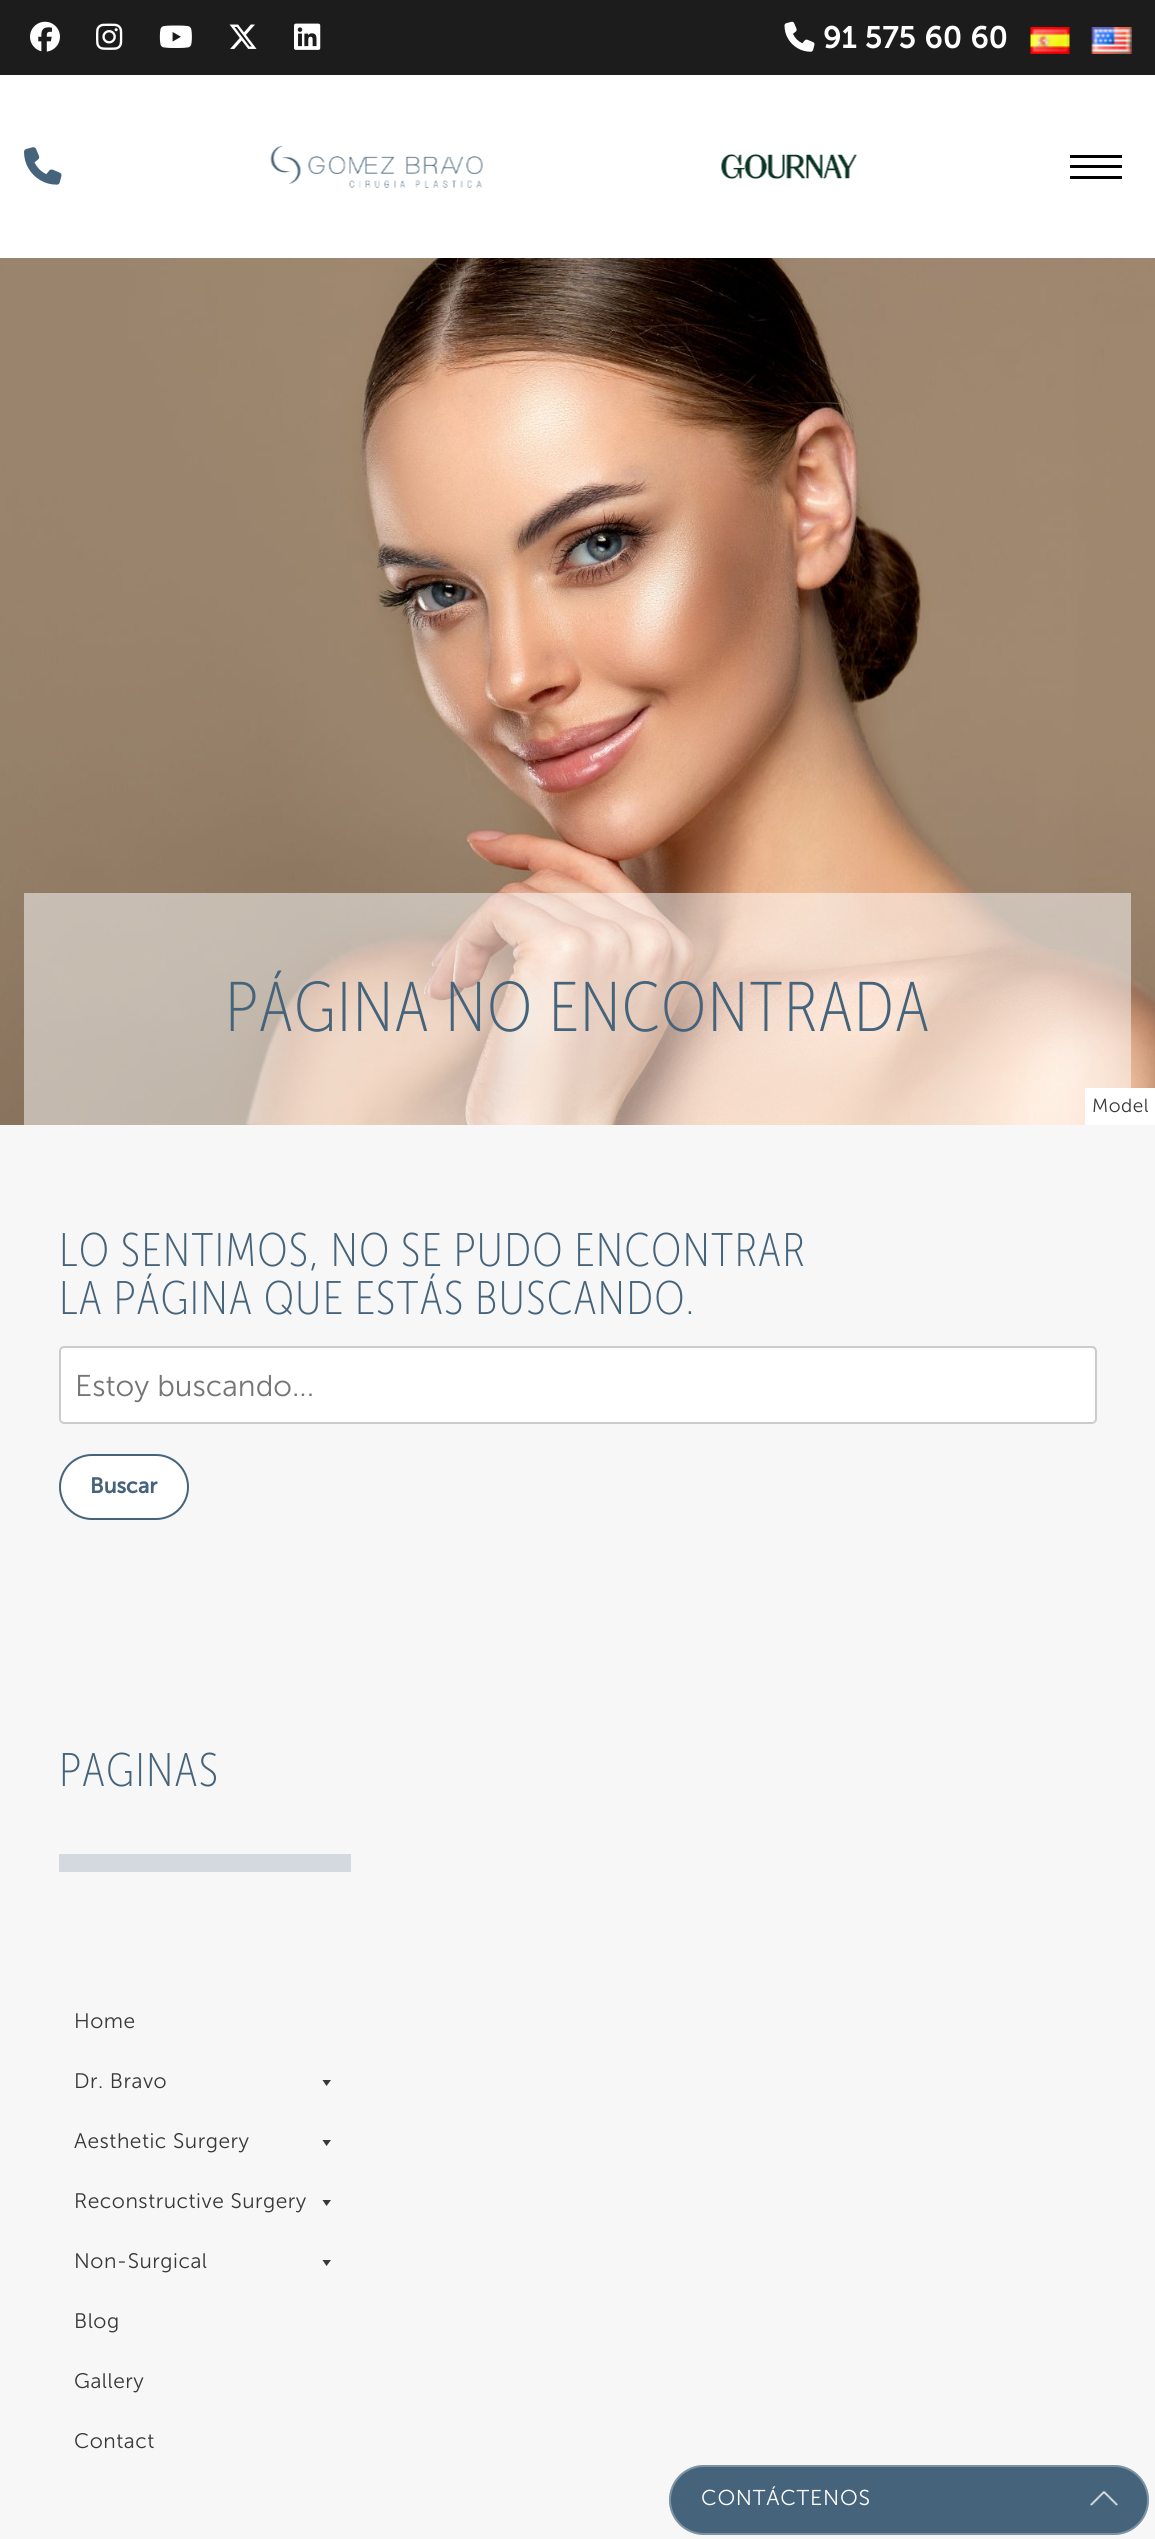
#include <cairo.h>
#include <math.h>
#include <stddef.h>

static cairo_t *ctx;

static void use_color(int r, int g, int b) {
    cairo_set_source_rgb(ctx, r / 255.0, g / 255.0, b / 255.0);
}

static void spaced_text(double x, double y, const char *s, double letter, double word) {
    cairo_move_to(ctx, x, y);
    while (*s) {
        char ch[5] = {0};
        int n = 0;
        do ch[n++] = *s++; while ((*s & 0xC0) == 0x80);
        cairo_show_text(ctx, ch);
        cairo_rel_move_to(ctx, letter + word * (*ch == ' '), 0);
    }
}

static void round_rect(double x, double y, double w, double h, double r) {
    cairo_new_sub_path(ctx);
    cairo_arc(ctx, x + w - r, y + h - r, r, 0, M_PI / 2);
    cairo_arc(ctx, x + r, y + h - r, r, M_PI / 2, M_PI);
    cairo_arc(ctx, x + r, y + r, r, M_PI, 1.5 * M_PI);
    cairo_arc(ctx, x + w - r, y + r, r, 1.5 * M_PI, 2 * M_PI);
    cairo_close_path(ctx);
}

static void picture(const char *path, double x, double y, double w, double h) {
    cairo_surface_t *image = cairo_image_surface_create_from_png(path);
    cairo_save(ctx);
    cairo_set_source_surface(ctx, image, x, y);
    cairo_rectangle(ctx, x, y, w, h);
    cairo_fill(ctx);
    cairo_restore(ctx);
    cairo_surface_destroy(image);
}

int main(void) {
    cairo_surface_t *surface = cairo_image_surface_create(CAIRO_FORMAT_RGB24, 1155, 2539);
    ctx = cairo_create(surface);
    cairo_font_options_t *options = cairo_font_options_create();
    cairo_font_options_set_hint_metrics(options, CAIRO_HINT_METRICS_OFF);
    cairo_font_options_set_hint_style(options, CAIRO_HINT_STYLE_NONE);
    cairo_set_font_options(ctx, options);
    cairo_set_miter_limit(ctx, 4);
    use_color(247, 247, 247);
    cairo_paint(ctx);
    use_color(28, 28, 28);
    cairo_rectangle(ctx, 0, 0, 1155, 75);
    cairo_fill(ctx);
    picture("img1.png", 30, 21, 30, 31);
    picture("img2.png", 96, 23, 27, 27);
    picture("img3.png", 159, 25, 33, 23);
    picture("img4.png", 229, 24, 28, 25);
    picture("img5.png", 294, 23, 27, 27);
    picture("img6.png", 784, 21, 31, 31);
    cairo_select_font_face(ctx, "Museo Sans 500", CAIRO_FONT_SLANT_NORMAL, CAIRO_FONT_WEIGHT_BOLD);
    cairo_set_font_size(ctx, 30);
    use_color(255, 255, 255);
    spaced_text(823, 48, "91 575 60 60", 0.5, 0);
    picture("img7.png", 1030, 27, 40, 27);
    picture("img8.png", 1091, 27, 41, 27);
    cairo_rectangle(ctx, 0, 75, 1155, 183);
    cairo_fill(ctx);
    picture("img9.png", 24, 147, 38, 38);
    picture("img10.png", 270, 145, 213, 43);
    picture("img11.png", 721, 154, 136, 25);
    use_color(0, 0, 0);
    cairo_rectangle(ctx, 1070, 155, 52, 3);
    cairo_fill(ctx);
    cairo_rectangle(ctx, 1070, 165, 52, 3);
    cairo_fill(ctx);
    cairo_rectangle(ctx, 1070, 176, 52, 3);
    cairo_fill(ctx);
    picture("img12.png", 0, 258, 1155, 867);
    cairo_set_source_rgba(ctx, 1, 1, 1, 0.5);
    cairo_rectangle(ctx, 24, 893, 1107, 232);
    cairo_fill(ctx);
    cairo_select_font_face(ctx, "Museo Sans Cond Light", CAIRO_FONT_SLANT_NORMAL, CAIRO_FONT_WEIGHT_NORMAL);
    cairo_set_font_size(ctx, 70.25);
    use_color(69, 99, 122);
    spaced_text(225, 1031, "PÁGINA NO ENCONTRADA", 1.2, 0);
    use_color(255, 255, 255);
    cairo_rectangle(ctx, 1085, 1088, 70, 37);
    cairo_fill(ctx);
    cairo_select_font_face(ctx, "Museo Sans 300 Light", CAIRO_FONT_SLANT_NORMAL, CAIRO_FONT_WEIGHT_NORMAL);
    cairo_set_font_size(ctx, 19);
    use_color(56, 56, 56);
    spaced_text(1092, 1112, "Model", 0.5, 0);
    cairo_select_font_face(ctx, "Museo Sans Cond Light", CAIRO_FONT_SLANT_NORMAL, CAIRO_FONT_WEIGHT_NORMAL);
    cairo_set_font_size(ctx, 47.1);
    use_color(69, 99, 122);
    spaced_text(59, 1266, "LO SENTIMOS, NO SE PUDO ENCONTRAR", 1.2, 0);
    spaced_text(59, 1314, "LA PÁGINA QUE ESTÁS BUSCANDO.", 1.2, 0);
    use_color(255, 255, 255);
    round_rect(59, 1346, 1038, 78, 5);
    cairo_fill(ctx);
    use_color(236, 236, 236);
    cairo_new_path(ctx);
    cairo_move_to(ctx, 63, 1348);
    cairo_line_to(ctx, 1092, 1348);
    cairo_curve_to(ctx, 1094, 1348, 1095, 1350, 1095, 1352);
    cairo_line_to(ctx, 1095, 1350);
    cairo_curve_to(ctx, 1095, 1348, 1094, 1347, 1092, 1347);
    cairo_line_to(ctx, 63, 1347);
    cairo_curve_to(ctx, 61, 1347, 60, 1348, 60, 1350);
    cairo_line_to(ctx, 60, 1352);
    cairo_curve_to(ctx, 60, 1350, 61, 1348, 63, 1348);
    cairo_close_path(ctx);
    cairo_fill(ctx);
    round_rect(60, 1347, 1036, 76, 4);
    use_color(204, 204, 204);
    cairo_stroke(ctx);
    cairo_select_font_face(ctx, "Museo Sans 300 Light", CAIRO_FONT_SLANT_NORMAL, CAIRO_FONT_WEIGHT_NORMAL);
    cairo_set_font_size(ctx, 30);
    use_color(117, 117, 117);
    cairo_move_to(ctx, 75, 1396);
    cairo_show_text(ctx, "Estoy buscando...");
    use_color(255, 255, 255);
    round_rect(60, 1455, 128, 64, 32);
    cairo_fill_preserve(ctx);
    use_color(69, 99, 122);
    cairo_stroke(ctx);
    cairo_select_font_face(ctx, "Museo Sans 500", CAIRO_FONT_SLANT_NORMAL, CAIRO_FONT_WEIGHT_BOLD);
    cairo_set_font_size(ctx, 21.5);
    cairo_move_to(ctx, 90, 1493);
    cairo_show_text(ctx, "Buscar");
    cairo_select_font_face(ctx, "Museo Sans Cond Light", CAIRO_FONT_SLANT_NORMAL, CAIRO_FONT_WEIGHT_NORMAL);
    cairo_set_font_size(ctx, 47.1);
    spaced_text(59, 1786, "PAGINAS", 1.2, 0);
    use_color(211, 217, 222);
    cairo_rectangle(ctx, 59, 1854, 292, 18);
    cairo_fill(ctx);
    cairo_select_font_face(ctx, "Museo Sans 300 Light", CAIRO_FONT_SLANT_NORMAL, CAIRO_FONT_WEIGHT_NORMAL);
    cairo_set_font_size(ctx, 21);
    use_color(56, 56, 56);
    spaced_text(74, 2028, "Home", 0.5, 0);
    spaced_text(74, 2088, "Dr. Bravo", 0.5, 0);
    cairo_new_path(ctx);
    cairo_move_to(ctx, 331, 2080);
    cairo_line_to(ctx, 326.5, 2086);
    cairo_line_to(ctx, 322.5, 2080);
    cairo_close_path(ctx);
    cairo_fill(ctx);
    spaced_text(74, 2148, "Aesthetic Surgery", 0.5, 0);
    cairo_new_path(ctx);
    cairo_move_to(ctx, 331, 2140);
    cairo_line_to(ctx, 326.5, 2146);
    cairo_line_to(ctx, 322.5, 2140);
    cairo_close_path(ctx);
    cairo_fill(ctx);
    spaced_text(74, 2208, "Reconstructive Surgery", 0.5, 0);
    cairo_new_path(ctx);
    cairo_move_to(ctx, 331, 2200);
    cairo_line_to(ctx, 326.5, 2206);
    cairo_line_to(ctx, 322.5, 2200);
    cairo_close_path(ctx);
    cairo_fill(ctx);
    spaced_text(74, 2268, "Non-Surgical", 0.5, 0);
    cairo_new_path(ctx);
    cairo_move_to(ctx, 331, 2260);
    cairo_line_to(ctx, 326.5, 2266);
    cairo_line_to(ctx, 322.5, 2260);
    cairo_close_path(ctx);
    cairo_fill(ctx);
    spaced_text(74, 2328, "Blog", 0.5, 0);
    spaced_text(74, 2388, "Gallery", 0.5, 0);
    spaced_text(74, 2448, "Contact", 0.5, 0);
    use_color(69, 99, 122);
    round_rect(669, 2465, 480, 70, 35);
    cairo_fill(ctx);
    round_rect(670, 2466, 478, 68, 34);
    cairo_set_source_rgba(ctx, 1, 1, 1, 0.3);
    cairo_stroke(ctx);
    cairo_set_font_size(ctx, 21.5);
    use_color(255, 255, 255);
    spaced_text(701, 2505, "CONTÁCTENOS", 0.75, 0);
    picture("img13.png", 1090, 2490, 28, 16);
    cairo_surface_write_to_png(surface, "result.png");
    cairo_font_options_destroy(options);
    cairo_destroy(ctx);
    cairo_surface_destroy(surface);
    return 0;
}
